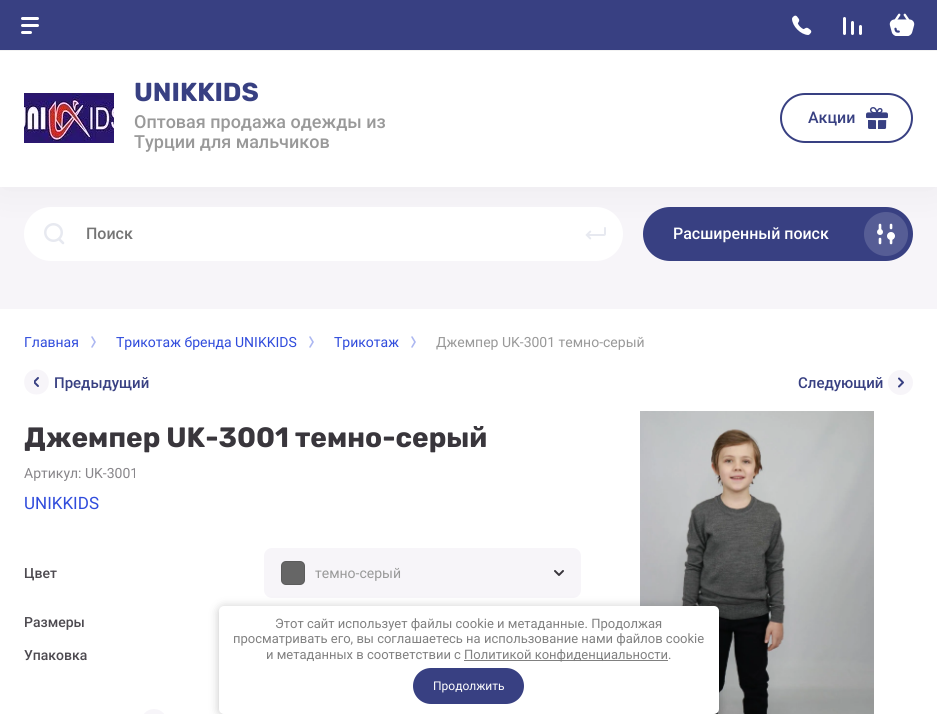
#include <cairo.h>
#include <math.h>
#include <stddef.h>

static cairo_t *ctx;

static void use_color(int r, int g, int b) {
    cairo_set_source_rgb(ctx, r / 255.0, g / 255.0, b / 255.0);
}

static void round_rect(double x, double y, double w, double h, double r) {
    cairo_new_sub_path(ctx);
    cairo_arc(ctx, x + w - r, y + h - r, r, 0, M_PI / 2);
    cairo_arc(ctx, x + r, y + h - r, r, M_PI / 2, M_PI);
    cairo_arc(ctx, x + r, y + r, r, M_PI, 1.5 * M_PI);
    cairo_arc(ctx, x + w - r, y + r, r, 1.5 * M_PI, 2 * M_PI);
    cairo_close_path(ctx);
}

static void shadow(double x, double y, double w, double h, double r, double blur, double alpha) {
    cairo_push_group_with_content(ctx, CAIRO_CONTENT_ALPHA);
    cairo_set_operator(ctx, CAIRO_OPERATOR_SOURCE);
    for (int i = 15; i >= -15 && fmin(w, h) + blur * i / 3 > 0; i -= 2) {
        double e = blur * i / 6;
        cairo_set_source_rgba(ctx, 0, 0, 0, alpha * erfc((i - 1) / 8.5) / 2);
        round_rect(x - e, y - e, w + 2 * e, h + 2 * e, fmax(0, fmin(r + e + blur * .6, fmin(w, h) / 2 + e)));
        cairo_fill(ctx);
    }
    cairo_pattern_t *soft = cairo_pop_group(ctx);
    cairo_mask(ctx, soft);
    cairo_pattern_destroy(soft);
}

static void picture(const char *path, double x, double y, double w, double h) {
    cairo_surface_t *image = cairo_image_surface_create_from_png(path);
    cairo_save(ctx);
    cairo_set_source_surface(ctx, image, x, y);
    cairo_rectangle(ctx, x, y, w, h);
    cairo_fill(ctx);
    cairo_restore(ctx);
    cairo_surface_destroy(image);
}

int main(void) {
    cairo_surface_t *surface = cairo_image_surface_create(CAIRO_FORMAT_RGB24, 937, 714);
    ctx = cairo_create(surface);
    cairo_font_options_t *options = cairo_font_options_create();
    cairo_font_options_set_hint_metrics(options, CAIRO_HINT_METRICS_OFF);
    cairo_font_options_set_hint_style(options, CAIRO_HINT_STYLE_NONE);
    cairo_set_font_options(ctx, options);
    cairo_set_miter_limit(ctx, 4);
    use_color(247, 245, 249);
    cairo_paint(ctx);
    use_color(0, 0, 0);
    shadow(0, 51, 937, 137, 0, 20, 0.05);
    use_color(242, 242, 242);
    cairo_rectangle(ctx, 0, 50, 937, 1);
    cairo_fill(ctx);
    use_color(56, 64, 130);
    cairo_rectangle(ctx, 0, 0, 937, 50);
    cairo_fill(ctx);
    picture("img1.png", 21, 17, 18, 17);
    picture("img2.png", 792, 15, 20, 20);
    picture("img3.png", 843, 17, 19, 18);
    picture("img4.png", 889, 13, 26, 23);
    use_color(255, 255, 255);
    cairo_rectangle(ctx, 0, 51, 937, 136);
    cairo_fill(ctx);
    picture("img5.png", 24, 93, 90, 50);
    cairo_select_font_face(ctx, "Rubik", CAIRO_FONT_SLANT_NORMAL, CAIRO_FONT_WEIGHT_BOLD);
    cairo_set_font_size(ctx, 26);
    use_color(56, 64, 130);
    cairo_move_to(ctx, 134, 101);
    cairo_show_text(ctx, "UNIKKIDS");
    cairo_select_font_face(ctx, "Roboto Medium", CAIRO_FONT_SLANT_NORMAL, CAIRO_FONT_WEIGHT_NORMAL);
    cairo_set_font_size(ctx, 18);
    use_color(153, 153, 153);
    cairo_move_to(ctx, 134, 128);
    cairo_show_text(ctx, "Оптовая продажа одежды из");
    cairo_move_to(ctx, 134, 148);
    cairo_show_text(ctx, "Турции для мальчиков");
    round_rect(781, 94, 131, 48, 24);
    use_color(56, 64, 130);
    cairo_stroke(ctx);
    cairo_set_font_size(ctx, 16);
    cairo_move_to(ctx, 808, 123);
    cairo_show_text(ctx, "Акции");
    picture("img6.png", 866, 107, 22, 22);
    use_color(255, 255, 255);
    round_rect(25, 208, 597, 52, 26);
    cairo_fill_preserve(ctx);
    cairo_stroke(ctx);
    cairo_arc(ctx, 53.5, 232.5, 8.25, 0, 2 * M_PI);
    use_color(231, 233, 240);
    cairo_set_line_width(ctx, 2.5);
    cairo_stroke(ctx);
    cairo_new_path(ctx);
    cairo_move_to(ctx, 59, 239);
    cairo_line_to(ctx, 63, 243);
    cairo_set_line_width(ctx, 2.6);
    cairo_set_line_cap(ctx, CAIRO_LINE_CAP_ROUND);
    cairo_stroke(ctx);
    use_color(117, 117, 117);
    cairo_move_to(ctx, 86, 239);
    cairo_show_text(ctx, "Поиск");
    picture("img7.png", 585, 227, 21, 13);
    use_color(56, 64, 130);
    round_rect(643, 207, 270, 54, 27);
    cairo_fill(ctx);
    use_color(255, 255, 255);
    cairo_move_to(ctx, 673, 239);
    cairo_show_text(ctx, "Расширенный поиск");
    use_color(86, 93, 149);
    cairo_new_path(ctx);
    cairo_arc(ctx, 886, 234, 22, 0, 2 * M_PI);
    cairo_fill(ctx);
    picture("img8.png", 877, 223, 18, 22);
    use_color(255, 255, 255);
    cairo_rectangle(ctx, 0, 309, 937, 405);
    cairo_fill(ctx);
    cairo_select_font_face(ctx, "Roboto", CAIRO_FONT_SLANT_NORMAL, CAIRO_FONT_WEIGHT_NORMAL);
    cairo_set_font_size(ctx, 14);
    use_color(48, 76, 220);
    cairo_move_to(ctx, 24, 347);
    cairo_show_text(ctx, "Главная");
    picture("img9.png", 91, 336, 5, 12);
    cairo_move_to(ctx, 116, 347);
    cairo_show_text(ctx, "Трикотаж бренда UNIKKIDS");
    picture("img9.png", 309, 336, 5, 12);
    cairo_move_to(ctx, 334, 347);
    cairo_show_text(ctx, "Трикотаж");
    picture("img9.png", 411, 336, 5, 12);
    use_color(153, 153, 153);
    cairo_move_to(ctx, 436, 347);
    cairo_show_text(ctx, "Джемпер UK-3001 темно-серый");
    use_color(247, 245, 249);
    cairo_new_path(ctx);
    cairo_move_to(ctx, 36.5, 394.5);
    cairo_curve_to(ctx, 20, 394.5, 20, 369.5, 36.5, 369.5);
    cairo_curve_to(ctx, 53, 369.5, 53, 394.5, 36.5, 394.5);
    cairo_close_path(ctx);
    cairo_fill(ctx);
    cairo_save(ctx);
    cairo_rectangle(ctx, 34, 377, 6, 11);
    cairo_clip(ctx);
    cairo_new_path(ctx);
    cairo_move_to(ctx, 38, 378);
    cairo_line_to(ctx, 34, 382);
    cairo_line_to(ctx, 38, 386);
    use_color(56, 64, 130);
    cairo_set_line_width(ctx, 2);
    cairo_set_line_join(ctx, CAIRO_LINE_JOIN_ROUND);
    cairo_stroke(ctx);
    cairo_restore(ctx);
    cairo_select_font_face(ctx, "Roboto Medium", CAIRO_FONT_SLANT_NORMAL, CAIRO_FONT_WEIGHT_NORMAL);
    cairo_set_font_size(ctx, 15);
    use_color(56, 64, 130);
    cairo_move_to(ctx, 54, 388);
    cairo_show_text(ctx, "Предыдущий");
    cairo_move_to(ctx, 798, 388);
    cairo_show_text(ctx, "Следующий");
    use_color(247, 245, 249);
    cairo_new_path(ctx);
    cairo_arc(ctx, 900.5, 382.5, 12.5, 0, 2 * M_PI);
    cairo_fill(ctx);
    cairo_new_path(ctx);
    cairo_move_to(ctx, 899, 386.5);
    cairo_line_to(ctx, 903, 382.5);
    cairo_line_to(ctx, 899, 378.5);
    use_color(56, 64, 130);
    cairo_set_line_width(ctx, 2);
    cairo_set_line_join(ctx, CAIRO_LINE_JOIN_ROUND);
    cairo_stroke(ctx);
    cairo_select_font_face(ctx, "Rubik", CAIRO_FONT_SLANT_NORMAL, CAIRO_FONT_WEIGHT_BOLD);
    cairo_set_font_size(ctx, 28);
    use_color(57, 54, 60);
    cairo_move_to(ctx, 24, 447);
    cairo_show_text(ctx, "Джемпер UK-3001 темно-серый");
    cairo_select_font_face(ctx, "Roboto", CAIRO_FONT_SLANT_NORMAL, CAIRO_FONT_WEIGHT_NORMAL);
    cairo_set_font_size(ctx, 14);
    use_color(136, 134, 138);
    cairo_move_to(ctx, 24, 478);
    cairo_show_text(ctx, "Артикул: UK-3001");
    cairo_set_font_size(ctx, 17);
    use_color(48, 76, 220);
    cairo_move_to(ctx, 24, 509);
    cairo_show_text(ctx, "UNIKKIDS");
    cairo_select_font_face(ctx, "Roboto Medium", CAIRO_FONT_SLANT_NORMAL, CAIRO_FONT_WEIGHT_NORMAL);
    cairo_set_font_size(ctx, 14);
    use_color(77, 74, 80);
    cairo_move_to(ctx, 24, 578);
    cairo_show_text(ctx, "Цвет");
    use_color(247, 245, 249);
    round_rect(264, 548, 317, 50, 8);
    cairo_fill(ctx);
    picture("img10.png", 554, 570, 10, 6);
    use_color(102, 102, 102);
    round_rect(281, 561, 24, 24, 5);
    cairo_fill(ctx);
    round_rect(281.5, 561.5, 23, 23, 4.5);
    cairo_set_source_rgba(ctx, 0, 0, 0, 0.1);
    cairo_set_line_width(ctx, 1);
    cairo_set_line_cap(ctx, CAIRO_LINE_CAP_BUTT);
    cairo_set_line_join(ctx, CAIRO_LINE_JOIN_MITER);
    cairo_stroke(ctx);
    cairo_select_font_face(ctx, "Roboto", CAIRO_FONT_SLANT_NORMAL, CAIRO_FONT_WEIGHT_NORMAL);
    use_color(153, 153, 153);
    cairo_move_to(ctx, 315, 578);
    cairo_show_text(ctx, "темно-серый");
    cairo_select_font_face(ctx, "Roboto Medium", CAIRO_FONT_SLANT_NORMAL, CAIRO_FONT_WEIGHT_NORMAL);
    use_color(77, 74, 80);
    cairo_move_to(ctx, 24, 627);
    cairo_show_text(ctx, "Размеры");
    cairo_move_to(ctx, 24, 660);
    cairo_show_text(ctx, "Упаковка");
    use_color(247, 245, 249);
    round_rect(141, 709, 26, 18, 13);
    cairo_fill(ctx);
    picture("img11.png", 640, 411, 234, 303);
    use_color(0, 0, 0);
    shadow(219, 607, 500, 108, 5, 5, 0.23);
    use_color(255, 255, 255);
    round_rect(219, 606, 500, 108, 5);
    cairo_fill(ctx);
    cairo_select_font_face(ctx, "Roboto", CAIRO_FONT_SLANT_NORMAL, CAIRO_FONT_WEIGHT_NORMAL);
    cairo_set_font_size(ctx, 13);
    use_color(128, 128, 128);
    cairo_move_to(ctx, 275, 628);
    cairo_show_text(ctx, "Этот сайт использует файлы cookie и метаданные. Продолжая");
    cairo_move_to(ctx, 233, 643);
    cairo_show_text(ctx, "просматривать его, вы соглашаетесь на использование нами файлов cookie");
    cairo_move_to(ctx, 266, 659);
    cairo_show_text(ctx, "и метаданных в соответствии с");
    cairo_rectangle(ctx, 464, 660, 204, 1);
    cairo_fill(ctx);
    cairo_move_to(ctx, 464, 659);
    cairo_show_text(ctx, "Политикой конфиденциальности.");
    use_color(56, 64, 130);
    round_rect(413, 668, 111, 36, 18);
    cairo_fill(ctx);
    cairo_set_font_size(ctx, 12);
    use_color(255, 255, 255);
    cairo_move_to(ctx, 433, 690);
    cairo_show_text(ctx, "Продолжить");
    cairo_surface_write_to_png(surface, "result.png");
    cairo_font_options_destroy(options);
    cairo_destroy(ctx);
    cairo_surface_destroy(surface);
    return 0;
}
